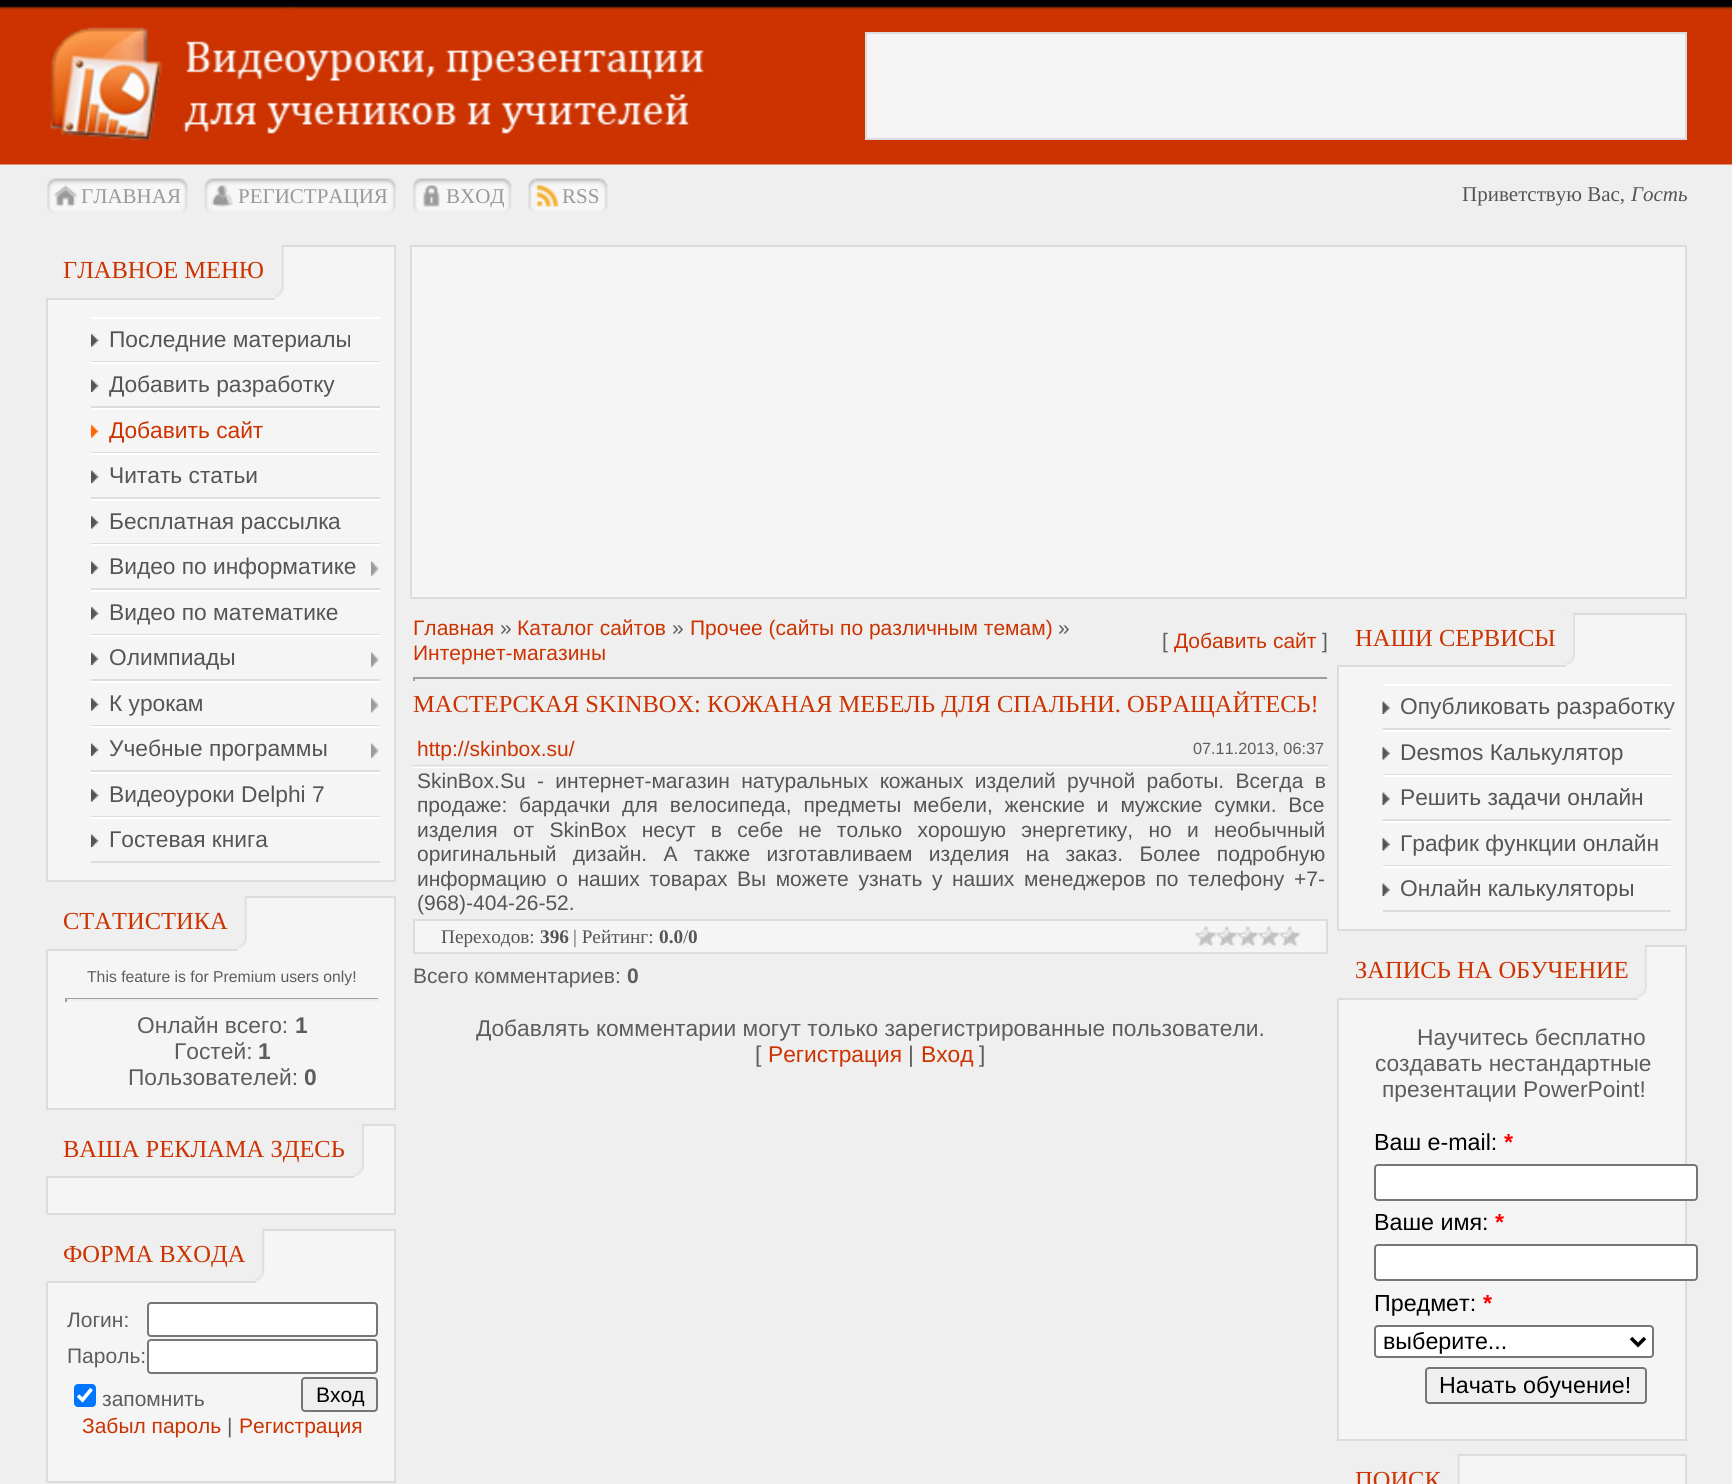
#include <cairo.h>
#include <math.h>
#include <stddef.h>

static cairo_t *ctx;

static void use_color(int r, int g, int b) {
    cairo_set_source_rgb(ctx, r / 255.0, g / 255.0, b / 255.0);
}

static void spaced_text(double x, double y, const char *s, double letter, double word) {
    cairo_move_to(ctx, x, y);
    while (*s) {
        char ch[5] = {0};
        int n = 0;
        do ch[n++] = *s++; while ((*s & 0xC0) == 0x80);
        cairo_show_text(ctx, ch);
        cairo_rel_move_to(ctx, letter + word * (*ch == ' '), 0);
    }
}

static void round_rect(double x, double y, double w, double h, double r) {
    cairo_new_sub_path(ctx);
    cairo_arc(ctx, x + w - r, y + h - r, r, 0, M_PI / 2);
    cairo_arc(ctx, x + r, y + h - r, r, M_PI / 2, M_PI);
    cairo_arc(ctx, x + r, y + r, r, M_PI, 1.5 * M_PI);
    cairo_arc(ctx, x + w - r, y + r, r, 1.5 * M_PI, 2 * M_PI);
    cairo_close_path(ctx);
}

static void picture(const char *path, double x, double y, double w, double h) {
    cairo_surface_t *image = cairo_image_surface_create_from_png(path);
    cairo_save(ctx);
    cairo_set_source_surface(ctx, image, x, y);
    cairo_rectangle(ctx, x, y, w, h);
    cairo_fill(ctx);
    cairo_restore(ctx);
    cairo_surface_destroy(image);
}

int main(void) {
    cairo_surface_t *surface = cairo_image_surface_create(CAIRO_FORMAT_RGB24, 1732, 1484);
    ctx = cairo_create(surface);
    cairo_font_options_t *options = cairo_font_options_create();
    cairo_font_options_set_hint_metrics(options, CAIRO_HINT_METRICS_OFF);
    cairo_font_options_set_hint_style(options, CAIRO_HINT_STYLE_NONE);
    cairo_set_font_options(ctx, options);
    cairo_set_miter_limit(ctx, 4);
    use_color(239, 239, 239);
    cairo_paint(ctx);
    picture("img1.png", 0, 0, 1732, 165);
    use_color(245, 245, 245);
    cairo_rectangle(ctx, 866, 33, 820, 106);
    cairo_fill_preserve(ctx);
    use_color(220, 219, 224);
    cairo_stroke(ctx);
    picture("img2.png", 47, 178, 8, 35);
    picture("img3.png", 54, 178, 127, 33);
    picture("img4.png", 54, 185, 23, 22);
    cairo_select_font_face(ctx, "Liberation Serif", CAIRO_FONT_SLANT_NORMAL, CAIRO_FONT_WEIGHT_NORMAL);
    cairo_set_font_size(ctx, 21);
    use_color(153, 153, 153);
    cairo_move_to(ctx, 81, 203);
    cairo_show_text(ctx, "ГЛАВНАЯ");
    picture("img5.png", 180, 178, 8, 35);
    picture("img6.png", 204, 178, 8, 35);
    picture("img7.png", 212, 178, 177, 33);
    picture("img8.png", 211, 185, 22, 22);
    cairo_move_to(ctx, 238, 203);
    cairo_show_text(ctx, "РЕГИСТРАЦИЯ");
    picture("img9.png", 388, 178, 8, 35);
    picture("img10.png", 413, 178, 7, 35);
    picture("img11.png", 420, 178, 84, 33);
    picture("img12.png", 423, 185, 17, 22);
    cairo_move_to(ctx, 446, 203);
    cairo_show_text(ctx, "ВХОД");
    picture("img13.png", 504, 178, 8, 35);
    picture("img14.png", 528, 178, 8, 35);
    picture("img15.png", 535, 178, 66, 33);
    picture("img16.png", 535, 185, 24, 22);
    cairo_move_to(ctx, 562, 203);
    cairo_show_text(ctx, "RSS");
    picture("img17.png", 600, 178, 8, 35);
    use_color(85, 85, 85);
    cairo_move_to(ctx, 1462, 201);
    cairo_show_text(ctx, "Приветствую Вас,");
    cairo_select_font_face(ctx, "Liberation Serif", CAIRO_FONT_SLANT_ITALIC, CAIRO_FONT_WEIGHT_NORMAL);
    cairo_move_to(ctx, 1631, 201);
    cairo_show_text(ctx, "Гость");
    use_color(245, 245, 245);
    cairo_rectangle(ctx, 48, 247, 346, 633);
    cairo_fill(ctx);
    use_color(220, 219, 224);
    cairo_rectangle(ctx, 283, 245, 113, 2);
    cairo_fill(ctx);
    cairo_rectangle(ctx, 394, 245, 2, 637);
    cairo_fill(ctx);
    use_color(239, 239, 239);
    cairo_rectangle(ctx, 48, 247, 227, 51);
    cairo_fill(ctx);
    use_color(220, 219, 224);
    cairo_rectangle(ctx, 46, 880, 350, 2);
    cairo_fill(ctx);
    cairo_rectangle(ctx, 46, 299, 2, 583);
    cairo_fill(ctx);
    cairo_rectangle(ctx, 46, 298, 229, 2);
    cairo_fill(ctx);
    cairo_select_font_face(ctx, "Liberation Serif", CAIRO_FONT_SLANT_NORMAL, CAIRO_FONT_WEIGHT_NORMAL);
    cairo_set_font_size(ctx, 24.5);
    use_color(204, 51, 0);
    cairo_move_to(ctx, 63, 278);
    cairo_show_text(ctx, "ГЛАВНОЕ МЕНЮ");
    picture("img18.png", 275, 245, 9, 53);
    use_color(255, 255, 255);
    cairo_rectangle(ctx, 91, 317, 289, 2);
    cairo_fill(ctx);
    use_color(220, 219, 224);
    cairo_rectangle(ctx, 91, 361, 289, 1);
    cairo_fill(ctx);
    picture("img19.png", 91, 333, 8, 14);
    cairo_select_font_face(ctx, "Liberation Sans", CAIRO_FONT_SLANT_NORMAL, CAIRO_FONT_WEIGHT_NORMAL);
    cairo_set_font_size(ctx, 22.75);
    use_color(85, 85, 85);
    cairo_move_to(ctx, 109, 347);
    cairo_show_text(ctx, "Последние материалы");
    use_color(255, 255, 255);
    cairo_rectangle(ctx, 91, 362, 289, 2);
    cairo_fill(ctx);
    use_color(220, 219, 224);
    cairo_rectangle(ctx, 91, 406, 289, 2);
    cairo_fill(ctx);
    picture("img20.png", 91, 379, 8, 13);
    use_color(85, 85, 85);
    cairo_move_to(ctx, 109, 392);
    cairo_show_text(ctx, "Добавить разработку");
    use_color(255, 255, 255);
    cairo_rectangle(ctx, 91, 408, 289, 2);
    cairo_fill(ctx);
    use_color(220, 219, 224);
    cairo_rectangle(ctx, 91, 452, 289, 1);
    cairo_fill(ctx);
    picture("img21.png", 91, 424, 7, 14);
    use_color(204, 51, 0);
    cairo_move_to(ctx, 109, 438);
    cairo_show_text(ctx, "Добавить сайт");
    use_color(255, 255, 255);
    cairo_rectangle(ctx, 91, 453, 289, 2);
    cairo_fill(ctx);
    use_color(220, 219, 224);
    cairo_rectangle(ctx, 91, 497, 289, 2);
    cairo_fill(ctx);
    picture("img20.png", 91, 470, 8, 13);
    use_color(85, 85, 85);
    cairo_move_to(ctx, 109, 483);
    cairo_show_text(ctx, "Читать статьи");
    use_color(255, 255, 255);
    cairo_rectangle(ctx, 91, 499, 289, 2);
    cairo_fill(ctx);
    use_color(220, 219, 224);
    cairo_rectangle(ctx, 91, 543, 289, 1);
    cairo_fill(ctx);
    picture("img19.png", 91, 515, 8, 14);
    use_color(85, 85, 85);
    cairo_move_to(ctx, 109, 529);
    cairo_show_text(ctx, "Бесплатная рассылка");
    use_color(255, 255, 255);
    cairo_rectangle(ctx, 91, 544, 289, 2);
    cairo_fill(ctx);
    use_color(220, 219, 224);
    cairo_rectangle(ctx, 91, 588, 289, 2);
    cairo_fill(ctx);
    picture("img20.png", 91, 561, 8, 13);
    use_color(85, 85, 85);
    cairo_move_to(ctx, 109, 574);
    cairo_show_text(ctx, "Видео по информатике");
    picture("img22.png", 371, 561, 8, 16);
    use_color(255, 255, 255);
    cairo_rectangle(ctx, 91, 590, 289, 2);
    cairo_fill(ctx);
    use_color(220, 219, 224);
    cairo_rectangle(ctx, 91, 634, 289, 1);
    cairo_fill(ctx);
    picture("img19.png", 91, 606, 8, 14);
    use_color(85, 85, 85);
    cairo_move_to(ctx, 109, 620);
    cairo_show_text(ctx, "Видео по математике");
    use_color(255, 255, 255);
    cairo_rectangle(ctx, 91, 635, 289, 2);
    cairo_fill(ctx);
    use_color(220, 219, 224);
    cairo_rectangle(ctx, 91, 679, 289, 2);
    cairo_fill(ctx);
    picture("img20.png", 91, 652, 8, 13);
    use_color(85, 85, 85);
    cairo_move_to(ctx, 109, 665);
    cairo_show_text(ctx, "Олимпиады");
    picture("img22.png", 371, 652, 8, 16);
    use_color(255, 255, 255);
    cairo_rectangle(ctx, 91, 681, 289, 2);
    cairo_fill(ctx);
    use_color(220, 219, 224);
    cairo_rectangle(ctx, 91, 725, 289, 1);
    cairo_fill(ctx);
    picture("img19.png", 91, 697, 8, 14);
    use_color(85, 85, 85);
    cairo_move_to(ctx, 109, 711);
    cairo_show_text(ctx, "К урокам");
    picture("img23.png", 371, 697, 8, 16);
    use_color(255, 255, 255);
    cairo_rectangle(ctx, 91, 726, 289, 2);
    cairo_fill(ctx);
    use_color(220, 219, 224);
    cairo_rectangle(ctx, 91, 770, 289, 2);
    cairo_fill(ctx);
    picture("img20.png", 91, 743, 8, 13);
    use_color(85, 85, 85);
    cairo_move_to(ctx, 109, 756);
    cairo_show_text(ctx, "Учебные программы");
    picture("img22.png", 371, 743, 8, 16);
    use_color(255, 255, 255);
    cairo_rectangle(ctx, 91, 772, 289, 2);
    cairo_fill(ctx);
    use_color(220, 219, 224);
    cairo_rectangle(ctx, 91, 816, 289, 1);
    cairo_fill(ctx);
    picture("img19.png", 91, 788, 8, 14);
    use_color(85, 85, 85);
    cairo_move_to(ctx, 109, 802);
    cairo_show_text(ctx, "Видеоуроки Delphi 7");
    use_color(255, 255, 255);
    cairo_rectangle(ctx, 91, 817, 289, 2);
    cairo_fill(ctx);
    use_color(220, 219, 224);
    cairo_rectangle(ctx, 91, 861, 289, 2);
    cairo_fill(ctx);
    picture("img20.png", 91, 834, 8, 13);
    use_color(85, 85, 85);
    cairo_move_to(ctx, 109, 847);
    cairo_show_text(ctx, "Гостевая книга");
    use_color(245, 245, 245);
    cairo_rectangle(ctx, 48, 898, 346, 210);
    cairo_fill(ctx);
    use_color(220, 219, 224);
    cairo_rectangle(ctx, 246, 896, 150, 2);
    cairo_fill(ctx);
    cairo_rectangle(ctx, 394, 896, 2, 214);
    cairo_fill(ctx);
    use_color(239, 239, 239);
    cairo_rectangle(ctx, 48, 898, 190, 51);
    cairo_fill(ctx);
    use_color(220, 219, 224);
    cairo_rectangle(ctx, 46, 1108, 350, 2);
    cairo_fill(ctx);
    cairo_rectangle(ctx, 46, 950, 2, 160);
    cairo_fill(ctx);
    cairo_rectangle(ctx, 46, 949, 192, 2);
    cairo_fill(ctx);
    cairo_select_font_face(ctx, "Liberation Serif", CAIRO_FONT_SLANT_NORMAL, CAIRO_FONT_WEIGHT_NORMAL);
    cairo_set_font_size(ctx, 24.5);
    use_color(204, 51, 0);
    cairo_move_to(ctx, 63, 929);
    cairo_show_text(ctx, "СТАТИСТИКА");
    picture("img24.png", 238, 896, 9, 53);
    cairo_select_font_face(ctx, "Liberation Sans", CAIRO_FONT_SLANT_NORMAL, CAIRO_FONT_WEIGHT_NORMAL);
    cairo_set_font_size(ctx, 15.75);
    use_color(93, 93, 93);
    cairo_move_to(ctx, 87, 982);
    cairo_show_text(ctx, "This feature is for Premium users only!");
    use_color(159, 159, 159);
    cairo_rectangle(ctx, 65, 998, 315, 1);
    cairo_fill(ctx);
    use_color(238, 238, 238);
    cairo_rectangle(ctx, 378, 998, 2, 4);
    cairo_fill(ctx);
    cairo_rectangle(ctx, 65, 999, 315, 2);
    cairo_fill(ctx);
    use_color(159, 159, 159);
    cairo_rectangle(ctx, 65, 998, 2, 4);
    cairo_fill(ctx);
    cairo_set_font_size(ctx, 22.75);
    use_color(93, 93, 93);
    cairo_move_to(ctx, 137, 1033);
    cairo_show_text(ctx, "Онлайн всего:");
    cairo_select_font_face(ctx, "Liberation Sans", CAIRO_FONT_SLANT_NORMAL, CAIRO_FONT_WEIGHT_BOLD);
    cairo_move_to(ctx, 295, 1033);
    cairo_show_text(ctx, "1");
    cairo_select_font_face(ctx, "Liberation Sans", CAIRO_FONT_SLANT_NORMAL, CAIRO_FONT_WEIGHT_NORMAL);
    cairo_move_to(ctx, 174, 1059);
    cairo_show_text(ctx, "Гостей:");
    cairo_select_font_face(ctx, "Liberation Sans", CAIRO_FONT_SLANT_NORMAL, CAIRO_FONT_WEIGHT_BOLD);
    cairo_move_to(ctx, 258, 1059);
    cairo_show_text(ctx, "1");
    cairo_select_font_face(ctx, "Liberation Sans", CAIRO_FONT_SLANT_NORMAL, CAIRO_FONT_WEIGHT_NORMAL);
    cairo_move_to(ctx, 128, 1085);
    cairo_show_text(ctx, "Пользователей:");
    cairo_select_font_face(ctx, "Liberation Sans", CAIRO_FONT_SLANT_NORMAL, CAIRO_FONT_WEIGHT_BOLD);
    cairo_move_to(ctx, 304, 1085);
    cairo_show_text(ctx, "0");
    use_color(245, 245, 245);
    cairo_rectangle(ctx, 48, 1126, 346, 87);
    cairo_fill(ctx);
    use_color(220, 219, 224);
    cairo_rectangle(ctx, 355, 1124, 41, 2);
    cairo_fill(ctx);
    cairo_rectangle(ctx, 394, 1124, 2, 91);
    cairo_fill(ctx);
    use_color(239, 239, 239);
    cairo_rectangle(ctx, 48, 1126, 307, 50);
    cairo_fill(ctx);
    use_color(220, 219, 224);
    cairo_rectangle(ctx, 46, 1176, 309, 2);
    cairo_fill(ctx);
    cairo_select_font_face(ctx, "Liberation Serif", CAIRO_FONT_SLANT_NORMAL, CAIRO_FONT_WEIGHT_NORMAL);
    cairo_set_font_size(ctx, 24.5);
    use_color(204, 51, 0);
    cairo_move_to(ctx, 63, 1157);
    cairo_show_text(ctx, "ВАША РЕКЛАМА ЗДЕСЬ");
    picture("img25.png", 355, 1123, 9, 53);
    use_color(220, 219, 224);
    cairo_rectangle(ctx, 46, 1213, 350, 2);
    cairo_fill(ctx);
    cairo_rectangle(ctx, 46, 1178, 2, 37);
    cairo_fill(ctx);
    use_color(245, 245, 245);
    cairo_rectangle(ctx, 48, 1231, 346, 250);
    cairo_fill(ctx);
    use_color(220, 219, 224);
    cairo_rectangle(ctx, 264, 1229, 132, 2);
    cairo_fill(ctx);
    cairo_rectangle(ctx, 394, 1229, 2, 253);
    cairo_fill(ctx);
    use_color(239, 239, 239);
    cairo_rectangle(ctx, 48, 1231, 208, 50);
    cairo_fill(ctx);
    use_color(220, 219, 224);
    cairo_rectangle(ctx, 46, 1281, 210, 2);
    cairo_fill(ctx);
    use_color(204, 51, 0);
    cairo_move_to(ctx, 63, 1262);
    cairo_show_text(ctx, "ФОРМА ВХОДА");
    picture("img26.png", 255, 1228, 10, 53);
    use_color(220, 219, 224);
    cairo_rectangle(ctx, 46, 1481, 350, 2);
    cairo_fill(ctx);
    cairo_rectangle(ctx, 46, 1283, 2, 199);
    cairo_fill(ctx);
    cairo_select_font_face(ctx, "Liberation Sans", CAIRO_FONT_SLANT_NORMAL, CAIRO_FONT_WEIGHT_NORMAL);
    cairo_set_font_size(ctx, 21);
    use_color(93, 93, 93);
    cairo_move_to(ctx, 67, 1327);
    cairo_show_text(ctx, "Логин:");
    use_color(255, 255, 255);
    round_rect(148, 1303, 229, 33, 3);
    cairo_fill_preserve(ctx);
    use_color(118, 118, 118);
    cairo_stroke(ctx);
    use_color(93, 93, 93);
    cairo_move_to(ctx, 67, 1363);
    cairo_show_text(ctx, "Пароль:");
    use_color(255, 255, 255);
    round_rect(148, 1340, 229, 33, 3);
    cairo_fill_preserve(ctx);
    use_color(118, 118, 118);
    cairo_stroke(ctx);
    use_color(0, 117, 255);
    round_rect(74, 1384, 22, 23, 4);
    cairo_fill(ctx);
    cairo_new_path(ctx);
    cairo_move_to(ctx, 78, 1395.5);
    cairo_line_to(ctx, 82.5, 1400);
    cairo_line_to(ctx, 91.5, 1389);
    use_color(255, 255, 255);
    cairo_set_line_width(ctx, 3.6);
    cairo_stroke(ctx);
    use_color(93, 93, 93);
    cairo_move_to(ctx, 102, 1406);
    cairo_show_text(ctx, "запомнить");
    use_color(239, 239, 239);
    round_rect(302, 1378, 75, 33, 3);
    cairo_fill_preserve(ctx);
    use_color(118, 118, 118);
    cairo_set_line_width(ctx, 2);
    cairo_stroke(ctx);
    use_color(0, 0, 0);
    cairo_move_to(ctx, 316, 1402);
    cairo_show_text(ctx, "Вход");
    use_color(204, 51, 0);
    cairo_move_to(ctx, 82, 1433);
    cairo_show_text(ctx, "Забыл пароль");
    use_color(93, 93, 93);
    cairo_move_to(ctx, 227, 1433);
    cairo_show_text(ctx, "|");
    use_color(204, 51, 0);
    cairo_move_to(ctx, 239, 1433);
    cairo_show_text(ctx, "Регистрация");
    use_color(245, 245, 245);
    cairo_rectangle(ctx, 411, 246, 1275, 352);
    cairo_fill_preserve(ctx);
    use_color(220, 219, 224);
    cairo_stroke(ctx);
    use_color(204, 51, 0);
    cairo_move_to(ctx, 413, 635);
    cairo_show_text(ctx, "Главная");
    use_color(93, 93, 93);
    cairo_move_to(ctx, 500, 635);
    cairo_show_text(ctx, "»");
    use_color(204, 51, 0);
    cairo_move_to(ctx, 517, 635);
    cairo_show_text(ctx, "Каталог сайтов");
    use_color(93, 93, 93);
    cairo_move_to(ctx, 672, 635);
    cairo_show_text(ctx, "»");
    use_color(204, 51, 0);
    cairo_move_to(ctx, 690, 635);
    cairo_show_text(ctx, "Прочее (сайты по различным темам)");
    use_color(93, 93, 93);
    cairo_move_to(ctx, 1058, 635);
    cairo_show_text(ctx, "»");
    use_color(204, 51, 0);
    cairo_move_to(ctx, 413, 660);
    cairo_show_text(ctx, "Интернет-магазины");
    use_color(93, 93, 93);
    cairo_move_to(ctx, 1162, 648);
    cairo_show_text(ctx, "[");
    use_color(204, 51, 0);
    cairo_move_to(ctx, 1174, 648);
    cairo_show_text(ctx, "Добавить сайт");
    use_color(93, 93, 93);
    cairo_move_to(ctx, 1322, 648);
    cairo_show_text(ctx, "]");
    use_color(159, 159, 159);
    cairo_rectangle(ctx, 413, 677, 915, 2);
    cairo_fill(ctx);
    use_color(238, 238, 238);
    cairo_rectangle(ctx, 1327, 677, 1, 4);
    cairo_fill(ctx);
    use_color(159, 159, 159);
    cairo_rectangle(ctx, 413, 677, 2, 4);
    cairo_fill(ctx);
    cairo_select_font_face(ctx, "Liberation Serif", CAIRO_FONT_SLANT_NORMAL, CAIRO_FONT_WEIGHT_NORMAL);
    cairo_set_font_size(ctx, 24.5);
    use_color(204, 51, 0);
    cairo_move_to(ctx, 413, 712);
    cairo_show_text(ctx, "МАСТЕРСКАЯ SKINBOX: КОЖАНАЯ МЕБЕЛЬ ДЛЯ СПАЛЬНИ. ОБРАЩАЙТЕСЬ!");
    cairo_select_font_face(ctx, "Liberation Sans", CAIRO_FONT_SLANT_NORMAL, CAIRO_FONT_WEIGHT_NORMAL);
    cairo_set_font_size(ctx, 21);
    cairo_move_to(ctx, 417, 756);
    cairo_show_text(ctx, "http://skinbox.su/");
    cairo_set_font_size(ctx, 16.25);
    use_color(93, 93, 93);
    cairo_move_to(ctx, 1193, 754);
    cairo_show_text(ctx, "07.11.2013, 06:37");
    picture("img27.png", 413, 764, 916, 5);
    cairo_set_font_size(ctx, 21);
    use_color(85, 85, 85);
    spaced_text(417, 788, "SkinBox.Su - интернет-магазин натуральных кожаных изделий ручной работы. Всегда в", 0, 5.5);
    spaced_text(417, 812, "продаже: бардачки для велосипеда, предметы мебели, женские и мужские сумки. Все", 0, 6);
    spaced_text(417, 837, "изделия от SkinBox несут в себе не только хорошую энергетику, но и необычный", 0, 9.4);
    spaced_text(417, 861, "оригинальный дизайн. А также изготавливаем изделия на заказ. Более подробную", 0, 10.5);
    spaced_text(417, 886, "информацию о наших товарах Вы можете узнать у наших менеджеров по телефону +7-", 0, 3.75);
    cairo_move_to(ctx, 417, 910);
    cairo_show_text(ctx, "(968)-404-26-52.");
    use_color(245, 245, 245);
    cairo_rectangle(ctx, 414, 920, 913, 33);
    cairo_fill_preserve(ctx);
    use_color(220, 219, 224);
    cairo_stroke(ctx);
    cairo_select_font_face(ctx, "Liberation Serif", CAIRO_FONT_SLANT_NORMAL, CAIRO_FONT_WEIGHT_NORMAL);
    cairo_set_font_size(ctx, 19.25);
    use_color(85, 85, 85);
    cairo_move_to(ctx, 441, 943);
    cairo_show_text(ctx, "Переходов:");
    cairo_select_font_face(ctx, "Liberation Serif", CAIRO_FONT_SLANT_NORMAL, CAIRO_FONT_WEIGHT_BOLD);
    cairo_move_to(ctx, 540, 943);
    cairo_show_text(ctx, "396");
    cairo_select_font_face(ctx, "Liberation Serif", CAIRO_FONT_SLANT_NORMAL, CAIRO_FONT_WEIGHT_NORMAL);
    cairo_move_to(ctx, 573, 943);
    cairo_show_text(ctx, "| Рейтинг:");
    cairo_select_font_face(ctx, "Liberation Serif", CAIRO_FONT_SLANT_NORMAL, CAIRO_FONT_WEIGHT_BOLD);
    cairo_move_to(ctx, 659, 943);
    cairo_show_text(ctx, "0.0");
    cairo_select_font_face(ctx, "Liberation Serif", CAIRO_FONT_SLANT_NORMAL, CAIRO_FONT_WEIGHT_NORMAL);
    cairo_move_to(ctx, 683, 943);
    cairo_show_text(ctx, "/");
    cairo_select_font_face(ctx, "Liberation Serif", CAIRO_FONT_SLANT_NORMAL, CAIRO_FONT_WEIGHT_BOLD);
    cairo_move_to(ctx, 688, 943);
    cairo_show_text(ctx, "0");
    picture("img28.png", 1195, 926, 106, 21);
    cairo_select_font_face(ctx, "Liberation Sans", CAIRO_FONT_SLANT_NORMAL, CAIRO_FONT_WEIGHT_NORMAL);
    cairo_set_font_size(ctx, 21);
    use_color(93, 93, 93);
    cairo_move_to(ctx, 413, 983);
    cairo_show_text(ctx, "Всего комментариев:");
    cairo_select_font_face(ctx, "Liberation Sans", CAIRO_FONT_SLANT_NORMAL, CAIRO_FONT_WEIGHT_BOLD);
    cairo_move_to(ctx, 627, 983);
    cairo_show_text(ctx, "0");
    cairo_select_font_face(ctx, "Liberation Sans", CAIRO_FONT_SLANT_NORMAL, CAIRO_FONT_WEIGHT_NORMAL);
    cairo_set_font_size(ctx, 22.75);
    cairo_move_to(ctx, 476, 1036);
    cairo_show_text(ctx, "Добавлять комментарии могут только зарегистрированные пользователи.");
    cairo_move_to(ctx, 755, 1062);
    cairo_show_text(ctx, "[");
    use_color(204, 51, 0);
    cairo_move_to(ctx, 768, 1062);
    cairo_show_text(ctx, "Регистрация");
    use_color(93, 93, 93);
    cairo_move_to(ctx, 908, 1062);
    cairo_show_text(ctx, "|");
    use_color(204, 51, 0);
    cairo_move_to(ctx, 921, 1062);
    cairo_show_text(ctx, "Вход");
    use_color(93, 93, 93);
    cairo_move_to(ctx, 979, 1062);
    cairo_show_text(ctx, "]");
    use_color(245, 245, 245);
    cairo_rectangle(ctx, 1339, 615, 346, 314);
    cairo_fill(ctx);
    use_color(220, 219, 224);
    cairo_rectangle(ctx, 1566, 613, 121, 2);
    cairo_fill(ctx);
    cairo_rectangle(ctx, 1685, 613, 2, 318);
    cairo_fill(ctx);
    use_color(239, 239, 239);
    cairo_rectangle(ctx, 1339, 615, 227, 50);
    cairo_fill(ctx);
    use_color(220, 219, 224);
    cairo_rectangle(ctx, 1337, 665, 229, 2);
    cairo_fill(ctx);
    cairo_select_font_face(ctx, "Liberation Serif", CAIRO_FONT_SLANT_NORMAL, CAIRO_FONT_WEIGHT_NORMAL);
    cairo_set_font_size(ctx, 24.5);
    use_color(204, 51, 0);
    cairo_move_to(ctx, 1355, 646);
    cairo_show_text(ctx, "НАШИ СЕРВИСЫ");
    picture("img25.png", 1566, 612, 9, 53);
    use_color(220, 219, 224);
    cairo_rectangle(ctx, 1337, 929, 350, 2);
    cairo_fill(ctx);
    cairo_rectangle(ctx, 1337, 667, 2, 264);
    cairo_fill(ctx);
    use_color(255, 255, 255);
    cairo_rectangle(ctx, 1383, 684, 288, 2);
    cairo_fill(ctx);
    use_color(220, 219, 224);
    cairo_rectangle(ctx, 1383, 728, 288, 2);
    cairo_fill(ctx);
    picture("img29.png", 1382, 701, 8, 13);
    cairo_select_font_face(ctx, "Liberation Sans", CAIRO_FONT_SLANT_NORMAL, CAIRO_FONT_WEIGHT_NORMAL);
    cairo_set_font_size(ctx, 22.75);
    use_color(85, 85, 85);
    cairo_move_to(ctx, 1400, 714);
    cairo_show_text(ctx, "Опубликовать разработку");
    use_color(255, 255, 255);
    cairo_rectangle(ctx, 1383, 730, 288, 2);
    cairo_fill(ctx);
    use_color(220, 219, 224);
    cairo_rectangle(ctx, 1383, 774, 288, 1);
    cairo_fill(ctx);
    picture("img30.png", 1382, 746, 8, 14);
    use_color(85, 85, 85);
    cairo_move_to(ctx, 1400, 760);
    cairo_show_text(ctx, "Desmos Калькулятор");
    use_color(255, 255, 255);
    cairo_rectangle(ctx, 1383, 775, 288, 2);
    cairo_fill(ctx);
    use_color(220, 219, 224);
    cairo_rectangle(ctx, 1383, 819, 288, 2);
    cairo_fill(ctx);
    picture("img29.png", 1382, 792, 8, 13);
    use_color(85, 85, 85);
    cairo_move_to(ctx, 1400, 805);
    cairo_show_text(ctx, "Решить задачи онлайн");
    use_color(255, 255, 255);
    cairo_rectangle(ctx, 1383, 821, 288, 2);
    cairo_fill(ctx);
    use_color(220, 219, 224);
    cairo_rectangle(ctx, 1383, 865, 288, 1);
    cairo_fill(ctx);
    picture("img30.png", 1382, 837, 8, 14);
    use_color(85, 85, 85);
    cairo_move_to(ctx, 1400, 851);
    cairo_show_text(ctx, "График функции онлайн");
    use_color(255, 255, 255);
    cairo_rectangle(ctx, 1383, 866, 288, 2);
    cairo_fill(ctx);
    use_color(220, 219, 224);
    cairo_rectangle(ctx, 1383, 910, 288, 2);
    cairo_fill(ctx);
    picture("img29.png", 1382, 883, 8, 13);
    use_color(85, 85, 85);
    cairo_move_to(ctx, 1400, 896);
    cairo_show_text(ctx, "Онлайн калькуляторы");
    use_color(245, 245, 245);
    cairo_rectangle(ctx, 1339, 947, 346, 492);
    cairo_fill(ctx);
    use_color(220, 219, 224);
    cairo_rectangle(ctx, 1646, 945, 41, 2);
    cairo_fill(ctx);
    cairo_rectangle(ctx, 1685, 945, 2, 495);
    cairo_fill(ctx);
    use_color(239, 239, 239);
    cairo_rectangle(ctx, 1339, 947, 299, 51);
    cairo_fill(ctx);
    use_color(220, 219, 224);
    cairo_rectangle(ctx, 1337, 1439, 350, 2);
    cairo_fill(ctx);
    cairo_rectangle(ctx, 1337, 999, 2, 441);
    cairo_fill(ctx);
    cairo_rectangle(ctx, 1337, 998, 301, 2);
    cairo_fill(ctx);
    cairo_select_font_face(ctx, "Liberation Serif", CAIRO_FONT_SLANT_NORMAL, CAIRO_FONT_WEIGHT_NORMAL);
    cairo_set_font_size(ctx, 24.5);
    use_color(204, 51, 0);
    cairo_move_to(ctx, 1355, 978);
    cairo_show_text(ctx, "ЗАПИСЬ НА ОБУЧЕНИЕ");
    picture("img31.png", 1638, 945, 9, 53);
    cairo_select_font_face(ctx, "Liberation Sans", CAIRO_FONT_SLANT_NORMAL, CAIRO_FONT_WEIGHT_NORMAL);
    cairo_set_font_size(ctx, 22.75);
    use_color(93, 93, 93);
    cairo_move_to(ctx, 1417, 1045);
    cairo_show_text(ctx, "Научитесь бесплатно");
    cairo_move_to(ctx, 1375, 1071);
    cairo_show_text(ctx, "создавать нестандартные");
    cairo_move_to(ctx, 1382, 1097);
    cairo_show_text(ctx, "презентации PowerPoint!");
    cairo_set_font_size(ctx, 23.25);
    use_color(0, 0, 0);
    cairo_move_to(ctx, 1374, 1150);
    cairo_show_text(ctx, "Ваш e-mail:");
    cairo_select_font_face(ctx, "Liberation Sans", CAIRO_FONT_SLANT_NORMAL, CAIRO_FONT_WEIGHT_BOLD);
    use_color(255, 0, 0);
    cairo_move_to(ctx, 1504, 1150);
    cairo_show_text(ctx, "*");
    use_color(255, 255, 255);
    round_rect(1375, 1165, 322, 35, 3);
    cairo_fill_preserve(ctx);
    use_color(118, 118, 118);
    cairo_stroke(ctx);
    cairo_select_font_face(ctx, "Liberation Sans", CAIRO_FONT_SLANT_NORMAL, CAIRO_FONT_WEIGHT_NORMAL);
    use_color(0, 0, 0);
    cairo_move_to(ctx, 1374, 1230);
    cairo_show_text(ctx, "Ваше имя:");
    cairo_select_font_face(ctx, "Liberation Sans", CAIRO_FONT_SLANT_NORMAL, CAIRO_FONT_WEIGHT_BOLD);
    use_color(255, 0, 0);
    cairo_move_to(ctx, 1495, 1230);
    cairo_show_text(ctx, "*");
    use_color(255, 255, 255);
    round_rect(1375, 1245, 322, 35, 3);
    cairo_fill_preserve(ctx);
    use_color(118, 118, 118);
    cairo_stroke(ctx);
    cairo_select_font_face(ctx, "Liberation Sans", CAIRO_FONT_SLANT_NORMAL, CAIRO_FONT_WEIGHT_NORMAL);
    use_color(0, 0, 0);
    cairo_move_to(ctx, 1374, 1311);
    cairo_show_text(ctx, "Предмет:");
    cairo_select_font_face(ctx, "Liberation Sans", CAIRO_FONT_SLANT_NORMAL, CAIRO_FONT_WEIGHT_BOLD);
    use_color(255, 0, 0);
    cairo_move_to(ctx, 1483, 1311);
    cairo_show_text(ctx, "*");
    use_color(255, 255, 255);
    round_rect(1375, 1326, 278, 31, 3);
    cairo_fill_preserve(ctx);
    use_color(118, 118, 118);
    cairo_stroke(ctx);
    cairo_new_path(ctx);
    cairo_move_to(ctx, 1631, 1338);
    cairo_line_to(ctx, 1638, 1345);
    cairo_line_to(ctx, 1645, 1338);
    use_color(0, 0, 0);
    cairo_set_line_width(ctx, 3.5);
    cairo_stroke(ctx);
    cairo_select_font_face(ctx, "Liberation Sans", CAIRO_FONT_SLANT_NORMAL, CAIRO_FONT_WEIGHT_NORMAL);
    cairo_move_to(ctx, 1383, 1349);
    cairo_show_text(ctx, "выберите...");
    use_color(239, 239, 239);
    round_rect(1426, 1368, 220, 35, 3);
    cairo_fill_preserve(ctx);
    use_color(118, 118, 118);
    cairo_set_line_width(ctx, 2);
    cairo_stroke(ctx);
    use_color(0, 0, 0);
    cairo_move_to(ctx, 1439, 1393);
    cairo_show_text(ctx, "Начать обучение!");
    use_color(245, 245, 245);
    cairo_rectangle(ctx, 1459, 1456, 226, 28);
    cairo_fill(ctx);
    use_color(220, 219, 224);
    cairo_rectangle(ctx, 1451, 1454, 236, 2);
    cairo_fill(ctx);
    cairo_rectangle(ctx, 1685, 1454, 2, 30);
    cairo_fill(ctx);
    cairo_select_font_face(ctx, "Liberation Serif", CAIRO_FONT_SLANT_NORMAL, CAIRO_FONT_WEIGHT_NORMAL);
    cairo_set_font_size(ctx, 24.5);
    use_color(204, 51, 0);
    cairo_move_to(ctx, 1355, 1488);
    cairo_show_text(ctx, "ПОИСК");
    picture("img32.png", 1451, 1454, 9, 30);
    cairo_surface_write_to_png(surface, "result.png");
    cairo_font_options_destroy(options);
    cairo_destroy(ctx);
    cairo_surface_destroy(surface);
    return 0;
}
